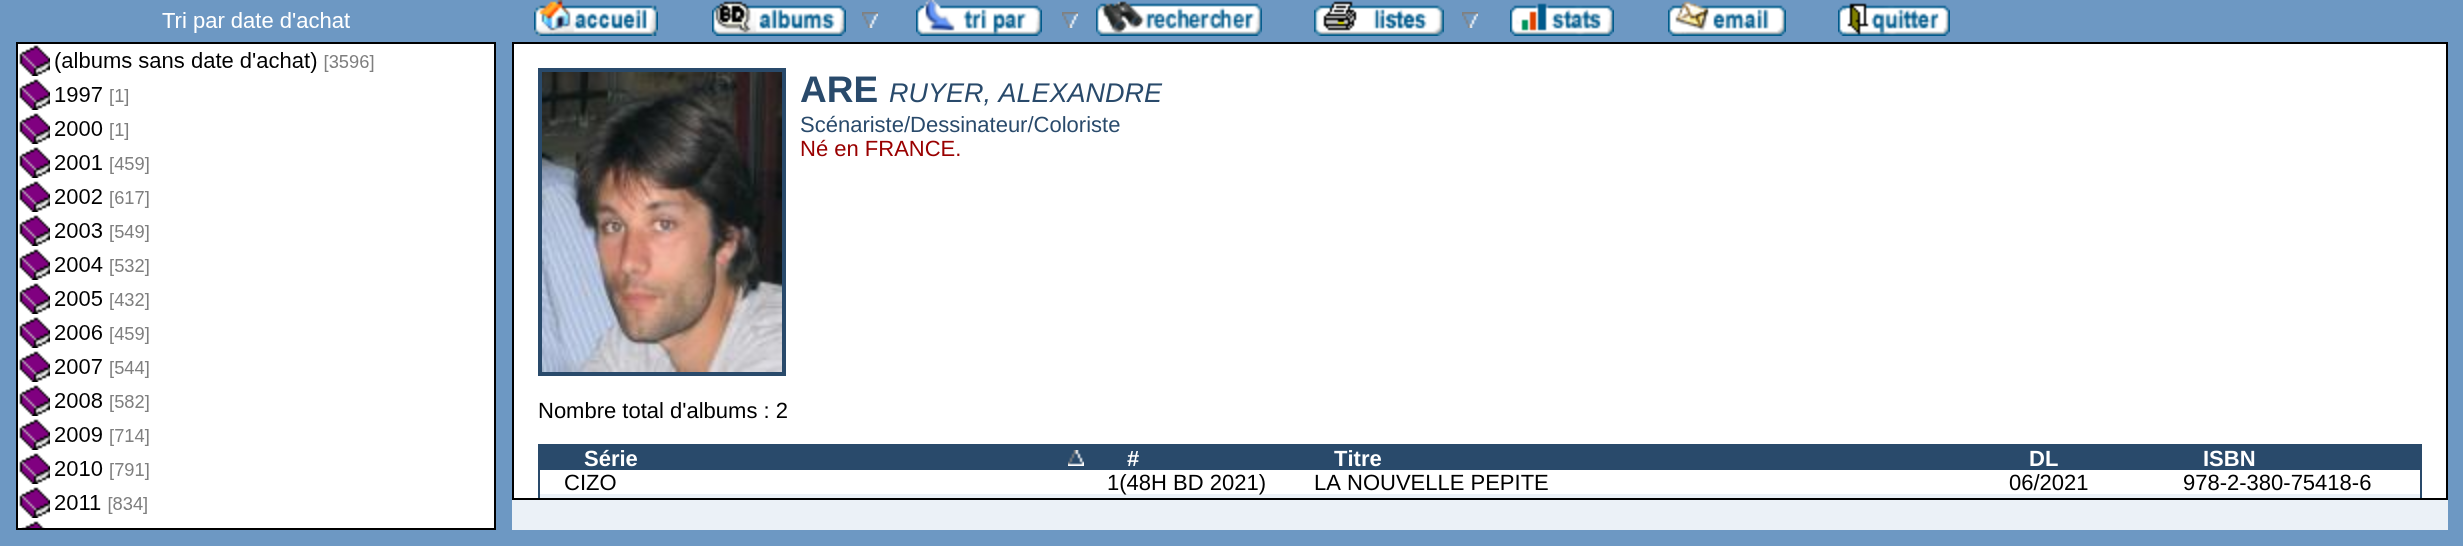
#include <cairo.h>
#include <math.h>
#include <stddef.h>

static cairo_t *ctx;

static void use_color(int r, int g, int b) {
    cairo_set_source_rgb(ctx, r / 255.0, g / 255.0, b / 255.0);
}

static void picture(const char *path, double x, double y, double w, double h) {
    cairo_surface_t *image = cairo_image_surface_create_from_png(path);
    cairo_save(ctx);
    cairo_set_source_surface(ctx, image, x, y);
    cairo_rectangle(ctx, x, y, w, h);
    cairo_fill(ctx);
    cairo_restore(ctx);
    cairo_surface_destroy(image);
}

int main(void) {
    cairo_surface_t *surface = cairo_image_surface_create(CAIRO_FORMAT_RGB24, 2463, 546);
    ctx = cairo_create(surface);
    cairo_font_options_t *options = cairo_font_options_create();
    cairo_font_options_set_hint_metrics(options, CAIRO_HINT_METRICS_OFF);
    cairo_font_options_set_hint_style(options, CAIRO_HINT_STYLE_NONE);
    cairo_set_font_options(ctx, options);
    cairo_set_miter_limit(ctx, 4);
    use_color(109, 152, 195);
    cairo_paint(ctx);
    picture("img1.png", 16, 12, 480, 518);
    picture("img2.png", 534, 0, 124, 36);
    picture("img3.png", 862, 12, 16, 16);
    picture("img4.png", 712, 1, 134, 35);
    picture("img3.png", 1062, 12, 16, 16);
    picture("img5.png", 916, 0, 126, 36);
    picture("img6.png", 1096, 1, 166, 35);
    picture("img3.png", 1462, 12, 16, 16);
    picture("img7.png", 1314, 1, 130, 35);
    picture("img8.png", 1510, 3, 104, 33);
    picture("img9.png", 1668, 1, 118, 35);
    picture("img10.png", 1838, 3, 112, 33);
    use_color(255, 255, 255);
    cairo_rectangle(ctx, 513, 43, 1934, 456);
    cairo_fill_preserve(ctx);
    use_color(0, 0, 0);
    cairo_stroke(ctx);
    cairo_rectangle(ctx, 540, 70, 244, 304);
    use_color(41, 74, 107);
    cairo_set_line_width(ctx, 4);
    cairo_stroke(ctx);
    picture("img11.png", 542, 72, 240, 300);
    cairo_select_font_face(ctx, "Liberation Sans", CAIRO_FONT_SLANT_NORMAL, CAIRO_FONT_WEIGHT_BOLD);
    cairo_set_font_size(ctx, 37);
    cairo_move_to(ctx, 800, 102);
    cairo_show_text(ctx, "ARE");
    cairo_select_font_face(ctx, "Liberation Sans", CAIRO_FONT_SLANT_ITALIC, CAIRO_FONT_WEIGHT_NORMAL);
    cairo_set_font_size(ctx, 27);
    cairo_move_to(ctx, 889, 102);
    cairo_show_text(ctx, "RUYER, ALEXANDRE");
    cairo_select_font_face(ctx, "Liberation Sans", CAIRO_FONT_SLANT_NORMAL, CAIRO_FONT_WEIGHT_NORMAL);
    cairo_set_font_size(ctx, 22);
    cairo_move_to(ctx, 800, 132);
    cairo_show_text(ctx, "Scénariste/Dessinateur/Coloriste");
    use_color(153, 0, 0);
    cairo_move_to(ctx, 800, 156);
    cairo_show_text(ctx, "Né en FRANCE.");
    use_color(0, 0, 0);
    cairo_move_to(ctx, 538, 418);
    cairo_show_text(ctx, "Nombre total d'albums : 2");
    cairo_save(ctx);
    cairo_rectangle(ctx, 514, 44, 1932, 454);
    cairo_clip(ctx);
    cairo_rectangle(ctx, 539, 445, 1882, 74);
    use_color(41, 74, 107);
    cairo_set_line_width(ctx, 2);
    cairo_stroke(ctx);
    cairo_restore(ctx);
    use_color(41, 74, 107);
    cairo_rectangle(ctx, 540, 446, 1880, 24);
    cairo_fill(ctx);
    picture("img12.png", 1068, 450, 16, 16);
    cairo_select_font_face(ctx, "Liberation Sans", CAIRO_FONT_SLANT_NORMAL, CAIRO_FONT_WEIGHT_BOLD);
    use_color(255, 255, 255);
    cairo_move_to(ctx, 584, 466);
    cairo_show_text(ctx, "Série");
    cairo_move_to(ctx, 1127, 466);
    cairo_show_text(ctx, "#");
    cairo_move_to(ctx, 1334, 466);
    cairo_show_text(ctx, "Titre");
    cairo_move_to(ctx, 2029, 466);
    cairo_show_text(ctx, "DL");
    cairo_move_to(ctx, 2203, 466);
    cairo_show_text(ctx, "ISBN");
    cairo_select_font_face(ctx, "Liberation Sans", CAIRO_FONT_SLANT_NORMAL, CAIRO_FONT_WEIGHT_NORMAL);
    use_color(0, 0, 0);
    cairo_move_to(ctx, 564, 490);
    cairo_show_text(ctx, "CIZO");
    use_color(235, 241, 247);
    cairo_rectangle(ctx, 540, 494, 1880, 4);
    cairo_fill(ctx);
    use_color(0, 0, 0);
    cairo_move_to(ctx, 1107, 490);
    cairo_show_text(ctx, "1(48H BD 2021)");
    cairo_move_to(ctx, 1314, 490);
    cairo_show_text(ctx, "LA NOUVELLE PEPITE");
    cairo_move_to(ctx, 2009, 490);
    cairo_show_text(ctx, "06/2021");
    cairo_move_to(ctx, 2183, 490);
    cairo_show_text(ctx, "978-2-380-75418-6");
    use_color(235, 241, 247);
    cairo_rectangle(ctx, 512, 500, 1936, 30);
    cairo_fill(ctx);
    cairo_surface_write_to_png(surface, "result.png");
    cairo_font_options_destroy(options);
    cairo_destroy(ctx);
    cairo_surface_destroy(surface);
    return 0;
}
